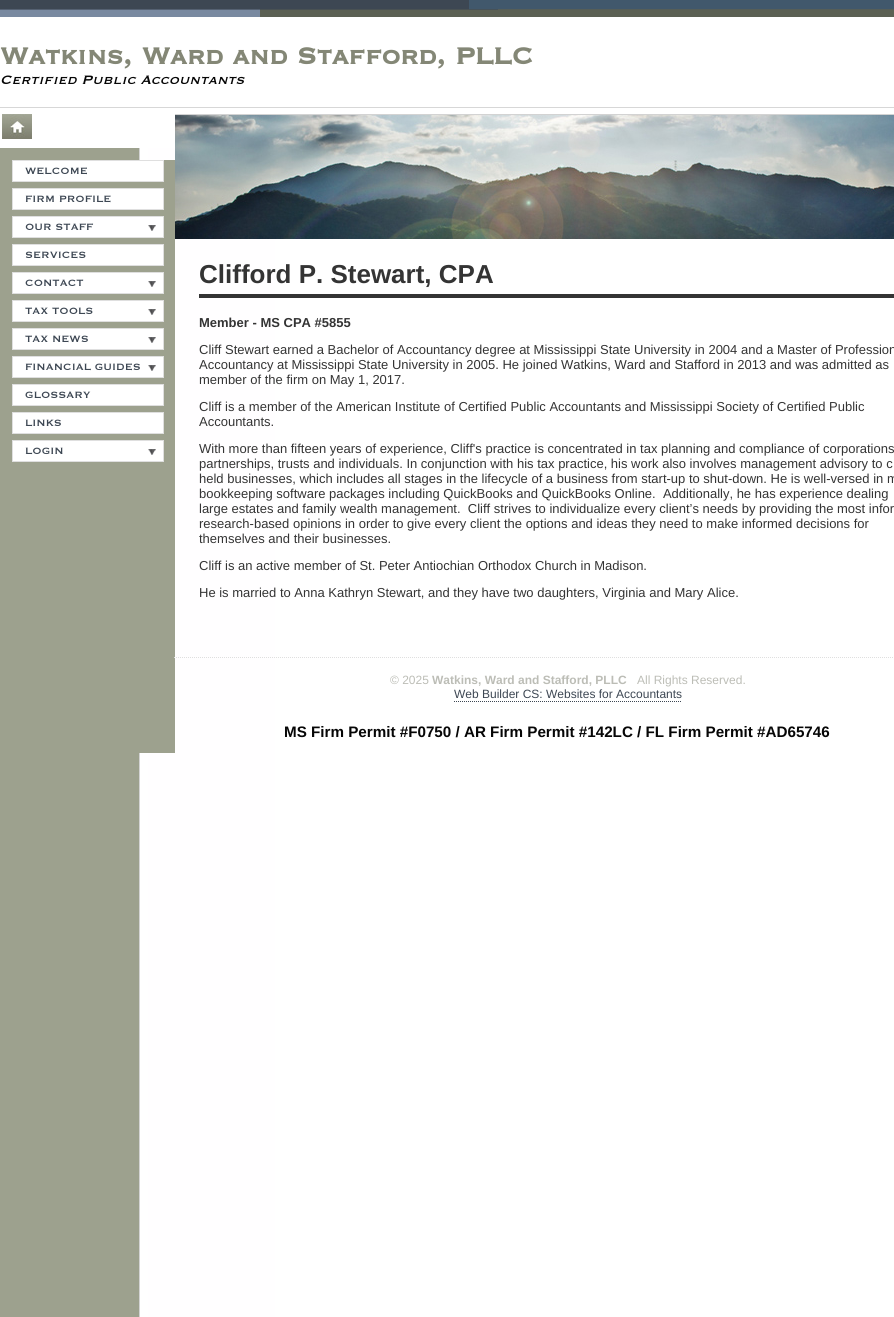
#include <cairo.h>
#include <math.h>
#include <stddef.h>

static cairo_t *ctx;

static void use_color(int r, int g, int b) {
    cairo_set_source_rgb(ctx, r / 255.0, g / 255.0, b / 255.0);
}

static void picture(const char *path, double x, double y, double w, double h) {
    cairo_surface_t *image = cairo_image_surface_create_from_png(path);
    cairo_save(ctx);
    cairo_set_source_surface(ctx, image, x, y);
    cairo_rectangle(ctx, x, y, w, h);
    cairo_fill(ctx);
    cairo_restore(ctx);
    cairo_surface_destroy(image);
}

int main(void) {
    cairo_surface_t *surface = cairo_image_surface_create(CAIRO_FORMAT_RGB24, 894, 1317);
    ctx = cairo_create(surface);
    cairo_font_options_t *options = cairo_font_options_create();
    cairo_font_options_set_hint_metrics(options, CAIRO_HINT_METRICS_OFF);
    cairo_font_options_set_hint_style(options, CAIRO_HINT_STYLE_NONE);
    cairo_set_font_options(ctx, options);
    cairo_set_miter_limit(ctx, 4);
    use_color(255, 255, 255);
    cairo_paint(ctx);
    picture("img1.png", 0, 148, 894, 1169);
    picture("img2.png", 0, 0, 894, 17);
    cairo_select_font_face(ctx, "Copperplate", CAIRO_FONT_SLANT_NORMAL, CAIRO_FONT_WEIGHT_BOLD);
    cairo_set_font_size(ctx, 30);
    use_color(132, 135, 118);
    cairo_move_to(ctx, 0, 64);
    cairo_show_text(ctx, "Watkins, Ward and Stafford, PLLC");
    cairo_select_font_face(ctx, "Copperplate", CAIRO_FONT_SLANT_ITALIC, CAIRO_FONT_WEIGHT_NORMAL);
    cairo_set_font_size(ctx, 16);
    use_color(6, 6, 6);
    cairo_move_to(ctx, 0, 84);
    cairo_show_text(ctx, "Certified Public Accountants");
    use_color(215, 215, 215);
    cairo_rectangle(ctx, 0, 107, 894, 1);
    cairo_fill(ctx);
    picture("img3.png", 2, 114, 30, 25);
    use_color(157, 161, 142);
    cairo_rectangle(ctx, 139, 160, 36, 593);
    cairo_fill(ctx);
    use_color(255, 255, 255);
    cairo_rectangle(ctx, 12.5, 160.5, 151, 21);
    cairo_fill_preserve(ctx);
    use_color(223, 223, 223);
    cairo_set_line_width(ctx, 1);
    cairo_stroke(ctx);
    cairo_select_font_face(ctx, "Copperplate", CAIRO_FONT_SLANT_NORMAL, CAIRO_FONT_WEIGHT_NORMAL);
    cairo_set_font_size(ctx, 12);
    use_color(61, 71, 83);
    cairo_move_to(ctx, 25, 174);
    cairo_show_text(ctx, "WELCOME");
    use_color(255, 255, 255);
    cairo_rectangle(ctx, 12.5, 188.5, 151, 21);
    cairo_fill_preserve(ctx);
    use_color(223, 223, 223);
    cairo_stroke(ctx);
    use_color(61, 71, 83);
    cairo_move_to(ctx, 25, 202);
    cairo_show_text(ctx, "FIRM PROFILE");
    use_color(255, 255, 255);
    cairo_rectangle(ctx, 12.5, 216.5, 151, 21);
    cairo_fill_preserve(ctx);
    use_color(223, 223, 223);
    cairo_stroke(ctx);
    picture("img4.png", 148, 225, 8, 6);
    use_color(61, 71, 83);
    cairo_move_to(ctx, 25, 230);
    cairo_show_text(ctx, "OUR STAFF");
    use_color(255, 255, 255);
    cairo_rectangle(ctx, 12.5, 244.5, 151, 21);
    cairo_fill_preserve(ctx);
    use_color(223, 223, 223);
    cairo_stroke(ctx);
    use_color(61, 71, 83);
    cairo_move_to(ctx, 25, 258);
    cairo_show_text(ctx, "SERVICES");
    use_color(255, 255, 255);
    cairo_rectangle(ctx, 12.5, 272.5, 151, 21);
    cairo_fill_preserve(ctx);
    use_color(223, 223, 223);
    cairo_stroke(ctx);
    picture("img4.png", 148, 281, 8, 6);
    use_color(61, 71, 83);
    cairo_move_to(ctx, 25, 286);
    cairo_show_text(ctx, "CONTACT");
    use_color(255, 255, 255);
    cairo_rectangle(ctx, 12.5, 300.5, 151, 21);
    cairo_fill_preserve(ctx);
    use_color(223, 223, 223);
    cairo_stroke(ctx);
    picture("img4.png", 148, 309, 8, 6);
    use_color(61, 71, 83);
    cairo_move_to(ctx, 25, 314);
    cairo_show_text(ctx, "TAX TOOLS");
    use_color(255, 255, 255);
    cairo_rectangle(ctx, 12.5, 328.5, 151, 21);
    cairo_fill_preserve(ctx);
    use_color(223, 223, 223);
    cairo_stroke(ctx);
    picture("img4.png", 148, 337, 8, 6);
    use_color(61, 71, 83);
    cairo_move_to(ctx, 25, 342);
    cairo_show_text(ctx, "TAX NEWS");
    use_color(255, 255, 255);
    cairo_rectangle(ctx, 12.5, 356.5, 151, 21);
    cairo_fill_preserve(ctx);
    use_color(223, 223, 223);
    cairo_stroke(ctx);
    picture("img4.png", 148, 365, 8, 6);
    use_color(61, 71, 83);
    cairo_move_to(ctx, 25, 370);
    cairo_show_text(ctx, "FINANCIAL GUIDES");
    use_color(255, 255, 255);
    cairo_rectangle(ctx, 12.5, 384.5, 151, 21);
    cairo_fill_preserve(ctx);
    use_color(223, 223, 223);
    cairo_stroke(ctx);
    use_color(61, 71, 83);
    cairo_move_to(ctx, 25, 398);
    cairo_show_text(ctx, "GLOSSARY");
    use_color(255, 255, 255);
    cairo_rectangle(ctx, 12.5, 412.5, 151, 21);
    cairo_fill_preserve(ctx);
    use_color(223, 223, 223);
    cairo_stroke(ctx);
    use_color(61, 71, 83);
    cairo_move_to(ctx, 25, 426);
    cairo_show_text(ctx, "LINKS");
    use_color(255, 255, 255);
    cairo_rectangle(ctx, 12.5, 440.5, 151, 21);
    cairo_fill_preserve(ctx);
    use_color(223, 223, 223);
    cairo_stroke(ctx);
    picture("img4.png", 148, 449, 8, 6);
    use_color(61, 71, 83);
    cairo_move_to(ctx, 25, 454);
    cairo_show_text(ctx, "LOGIN");
    picture("img5.png", 175, 115, 719, 124);
    use_color(211, 211, 211);
    cairo_rectangle(ctx, 175, 114, 719, 1);
    cairo_fill(ctx);
    use_color(52, 52, 52);
    cairo_rectangle(ctx, 199, 294, 695, 4);
    cairo_fill(ctx);
    cairo_select_font_face(ctx, "Liberation Sans", CAIRO_FONT_SLANT_NORMAL, CAIRO_FONT_WEIGHT_BOLD);
    cairo_set_font_size(ctx, 26);
    cairo_move_to(ctx, 199, 283);
    cairo_show_text(ctx, "Clifford P. Stewart, CPA");
    cairo_set_font_size(ctx, 13);
    cairo_move_to(ctx, 199, 327);
    cairo_show_text(ctx, "Member - MS CPA #5855");
    cairo_select_font_face(ctx, "Liberation Sans", CAIRO_FONT_SLANT_NORMAL, CAIRO_FONT_WEIGHT_NORMAL);
    cairo_move_to(ctx, 199, 354);
    cairo_show_text(ctx, "Cliff Stewart earned a Bachelor of Accountancy degree at Mississippi State University in 2004 and a Master of Profession");
    cairo_move_to(ctx, 199, 369);
    cairo_show_text(ctx, "Accountancy at Mississippi State University in 2005. He joined Watkins, Ward and Stafford in 2013 and was admitted as");
    cairo_move_to(ctx, 199, 384);
    cairo_show_text(ctx, "member of the firm on May 1, 2017.");
    cairo_move_to(ctx, 199, 411);
    cairo_show_text(ctx, "Cliff is a member of the American Institute of Certified Public Accountants and Mississippi Society of Certified Public");
    cairo_move_to(ctx, 199, 426);
    cairo_show_text(ctx, "Accountants.");
    cairo_move_to(ctx, 199, 453);
    cairo_show_text(ctx, "With more than fifteen years of experience, Cliff's practice is concentrated in tax planning and compliance of corporations");
    cairo_move_to(ctx, 199, 468);
    cairo_show_text(ctx, "partnerships, trusts and individuals. In conjunction with his tax practice, his work also involves management advisory to c");
    cairo_move_to(ctx, 199, 483);
    cairo_show_text(ctx, "held businesses, which includes all stages in the lifecycle of a business from start-up to shut-down. He is well-versed in m");
    cairo_move_to(ctx, 199, 498);
    cairo_show_text(ctx, "bookkeeping software packages including QuickBooks and QuickBooks Online.  Additionally, he has experience dealing");
    cairo_move_to(ctx, 199, 513);
    cairo_show_text(ctx, "large estates and family wealth management.  Cliff strives to individualize every client’s needs by providing the most infor");
    cairo_move_to(ctx, 199, 528);
    cairo_show_text(ctx, "research-based opinions in order to give every client the options and ideas they need to make informed decisions for");
    cairo_move_to(ctx, 199, 543);
    cairo_show_text(ctx, "themselves and their businesses.");
    cairo_move_to(ctx, 199, 570);
    cairo_show_text(ctx, "Cliff is an active member of St. Peter Antiochian Orthodox Church in Madison.");
    cairo_move_to(ctx, 199, 597);
    cairo_show_text(ctx, "He is married to Anna Kathryn Stewart, and they have two daughters, Virginia and Mary Alice.");
    cairo_new_path(ctx);
    cairo_move_to(ctx, 174, 657.5);
    cairo_line_to(ctx, 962, 657.5);
    use_color(223, 223, 223);
    cairo_set_dash(ctx, (double[]){1, 1}, 2, 0);
    cairo_stroke(ctx);
    cairo_set_font_size(ctx, 12);
    use_color(188, 189, 182);
    cairo_move_to(ctx, 390, 684);
    cairo_show_text(ctx, "© 2025");
    cairo_select_font_face(ctx, "Liberation Sans", CAIRO_FONT_SLANT_NORMAL, CAIRO_FONT_WEIGHT_BOLD);
    cairo_move_to(ctx, 432, 684);
    cairo_show_text(ctx, "Watkins, Ward and Stafford, PLLC");
    cairo_select_font_face(ctx, "Liberation Sans", CAIRO_FONT_SLANT_NORMAL, CAIRO_FONT_WEIGHT_NORMAL);
    cairo_move_to(ctx, 637, 684);
    cairo_show_text(ctx, "All Rights Reserved.");
    use_color(61, 71, 83);
    cairo_move_to(ctx, 454, 698);
    cairo_show_text(ctx, "Web Builder CS: Websites for Accountants");
    cairo_new_path(ctx);
    cairo_move_to(ctx, 454, 701.5);
    cairo_line_to(ctx, 682, 701.5);
    cairo_stroke(ctx);
    cairo_select_font_face(ctx, "Liberation Sans", CAIRO_FONT_SLANT_NORMAL, CAIRO_FONT_WEIGHT_BOLD);
    cairo_set_font_size(ctx, 15.2);
    use_color(6, 6, 6);
    cairo_move_to(ctx, 284, 737);
    cairo_show_text(ctx, "MS Firm Permit #F0750 / AR Firm Permit #142LC / FL Firm Permit #AD65746");
    cairo_surface_write_to_png(surface, "result.png");
    cairo_font_options_destroy(options);
    cairo_destroy(ctx);
    cairo_surface_destroy(surface);
    return 0;
}
